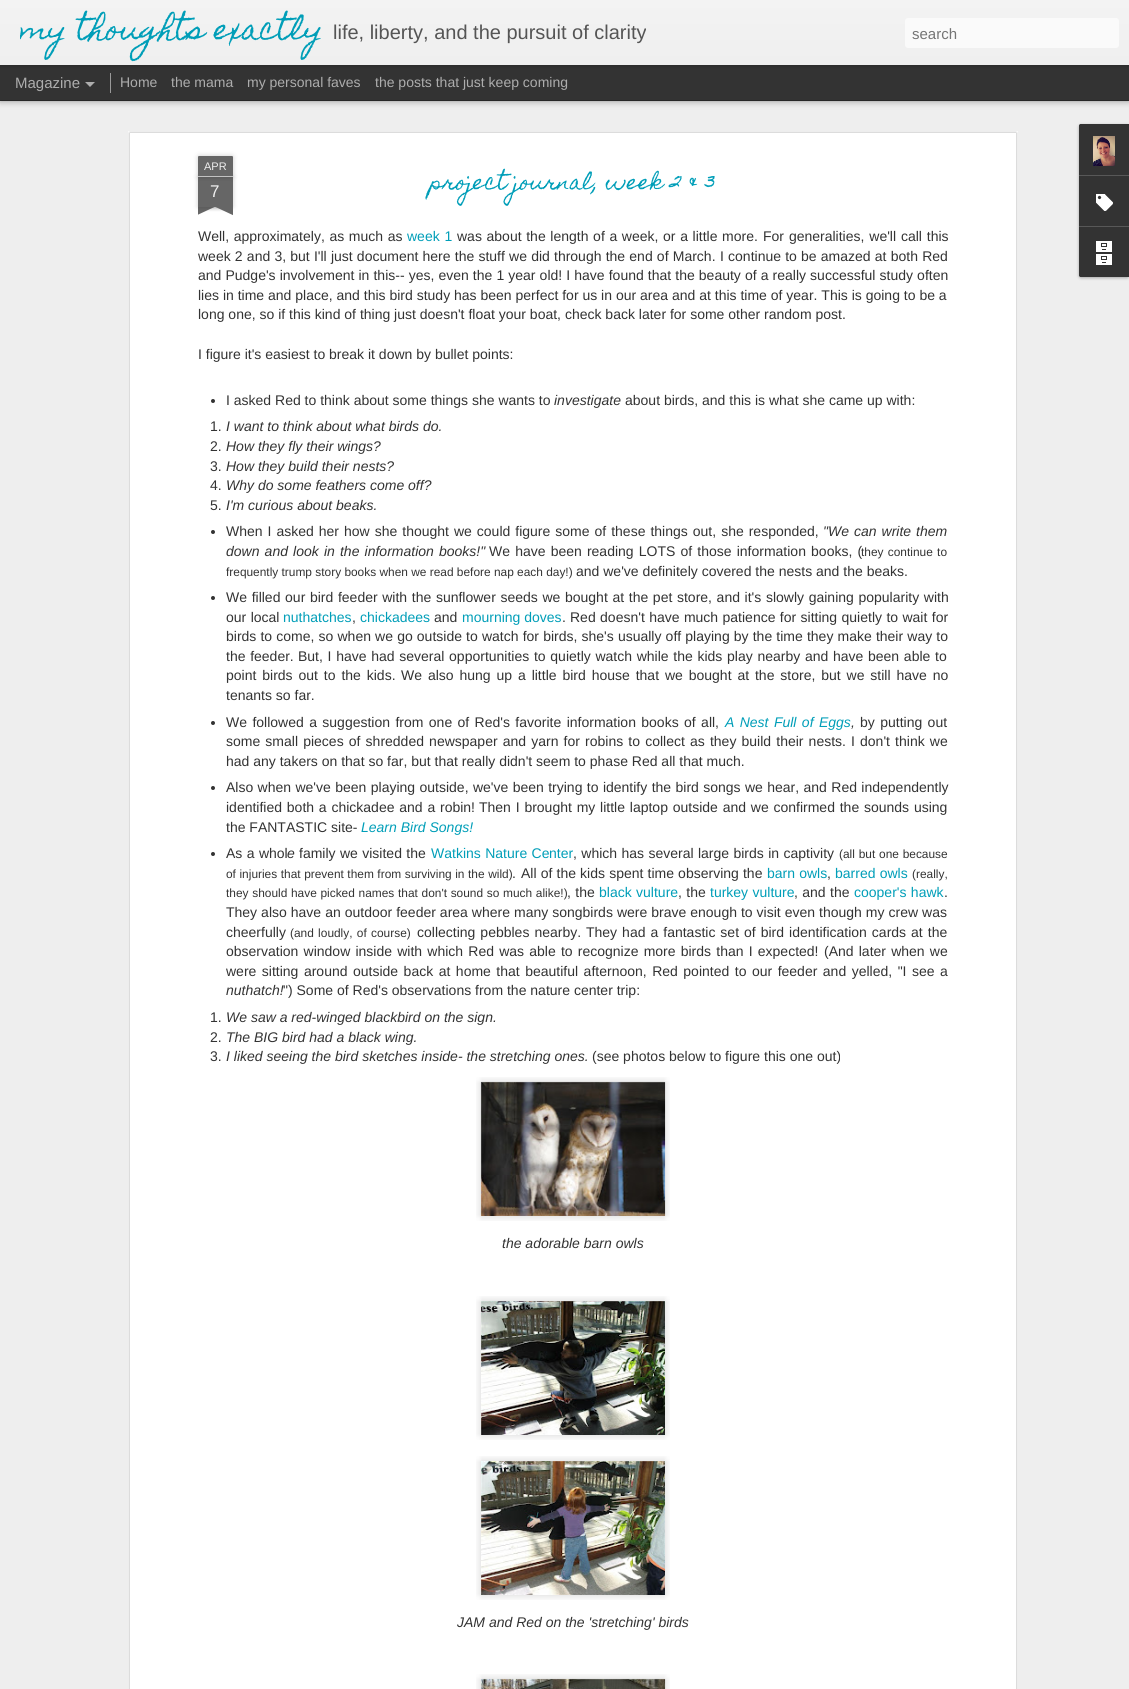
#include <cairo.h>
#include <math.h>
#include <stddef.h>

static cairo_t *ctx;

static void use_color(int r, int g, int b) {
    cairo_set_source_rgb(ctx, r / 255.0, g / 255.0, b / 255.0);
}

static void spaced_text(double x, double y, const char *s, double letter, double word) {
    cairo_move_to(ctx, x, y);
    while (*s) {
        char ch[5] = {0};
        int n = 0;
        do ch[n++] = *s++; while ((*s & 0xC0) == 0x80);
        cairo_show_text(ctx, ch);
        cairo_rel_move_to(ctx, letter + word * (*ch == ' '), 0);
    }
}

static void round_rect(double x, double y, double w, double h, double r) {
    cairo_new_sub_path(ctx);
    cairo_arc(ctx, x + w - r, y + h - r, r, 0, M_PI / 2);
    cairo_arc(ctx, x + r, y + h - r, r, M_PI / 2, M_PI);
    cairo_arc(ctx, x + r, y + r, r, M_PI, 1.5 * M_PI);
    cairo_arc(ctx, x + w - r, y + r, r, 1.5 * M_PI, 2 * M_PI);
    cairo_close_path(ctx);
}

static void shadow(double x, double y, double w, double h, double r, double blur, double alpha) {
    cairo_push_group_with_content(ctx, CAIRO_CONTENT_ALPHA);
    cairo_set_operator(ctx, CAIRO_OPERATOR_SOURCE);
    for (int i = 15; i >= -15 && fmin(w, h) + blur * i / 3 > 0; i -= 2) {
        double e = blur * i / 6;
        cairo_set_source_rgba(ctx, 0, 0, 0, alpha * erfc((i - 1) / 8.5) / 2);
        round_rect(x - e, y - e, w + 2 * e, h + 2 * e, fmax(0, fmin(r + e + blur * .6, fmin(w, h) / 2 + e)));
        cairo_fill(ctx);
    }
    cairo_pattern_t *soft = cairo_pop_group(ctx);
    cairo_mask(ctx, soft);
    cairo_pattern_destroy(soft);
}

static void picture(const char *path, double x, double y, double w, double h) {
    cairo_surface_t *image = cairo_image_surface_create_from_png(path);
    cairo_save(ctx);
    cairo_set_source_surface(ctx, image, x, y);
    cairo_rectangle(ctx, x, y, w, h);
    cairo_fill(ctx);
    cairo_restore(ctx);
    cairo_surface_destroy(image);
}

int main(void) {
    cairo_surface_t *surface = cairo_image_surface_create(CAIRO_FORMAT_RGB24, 1129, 1689);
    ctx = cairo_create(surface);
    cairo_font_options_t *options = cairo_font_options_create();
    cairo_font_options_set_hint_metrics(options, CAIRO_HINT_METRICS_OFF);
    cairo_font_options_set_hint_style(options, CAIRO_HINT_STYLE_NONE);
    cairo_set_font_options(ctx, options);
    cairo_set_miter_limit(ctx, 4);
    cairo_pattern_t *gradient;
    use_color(51, 51, 51);
    cairo_paint(ctx);
    use_color(238, 238, 238);
    cairo_rectangle(ctx, 0, 101, 1129, 1588);
    cairo_fill(ctx);
    use_color(0, 0, 0);
    shadow(0, 65, 1129, 35, 0, 4, 0.5);
    use_color(51, 51, 51);
    cairo_rectangle(ctx, 0, 65, 1129, 35);
    cairo_fill(ctx);
    use_color(153, 153, 153);
    cairo_rectangle(ctx, 110, 73, 1, 20);
    cairo_fill(ctx);
    use_color(0, 0, 0);
    shadow(0, 0, 1129, 65, 0, 2.5, 0.3);
    gradient = cairo_pattern_create_linear(0, 0, 0, 65);
    cairo_pattern_add_color_stop_rgba(gradient, 0, 0.953, 0.953, 0.953, 1);
    cairo_pattern_add_color_stop_rgba(gradient, 1, 0.937, 0.937, 0.937, 1);
    cairo_set_source(ctx, gradient);
    cairo_pattern_destroy(gradient);
    cairo_rectangle(ctx, 0, 0, 1129, 65);
    cairo_fill(ctx);
    cairo_save(ctx);
    cairo_rectangle(ctx, 20, 0, 874, 65);
    cairo_clip(ctx);
    cairo_select_font_face(ctx, "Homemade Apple", CAIRO_FONT_SLANT_NORMAL, CAIRO_FONT_WEIGHT_NORMAL);
    cairo_set_font_size(ctx, 28);
    use_color(0, 158, 184);
    cairo_move_to(ctx, 20, 39);
    cairo_show_text(ctx, "my thoughts exactly");
    cairo_restore(ctx);
    cairo_select_font_face(ctx, "Liberation Sans", CAIRO_FONT_SLANT_NORMAL, CAIRO_FONT_WEIGHT_NORMAL);
    cairo_set_font_size(ctx, 20);
    use_color(85, 85, 85);
    cairo_move_to(ctx, 333, 39);
    cairo_show_text(ctx, "life, liberty, and the pursuit of clarity");
    use_color(250, 250, 250);
    round_rect(905, 18, 214, 30, 3);
    cairo_fill(ctx);
    cairo_set_font_size(ctx, 15);
    use_color(117, 117, 117);
    cairo_move_to(ctx, 912, 39);
    cairo_show_text(ctx, "search");
    use_color(173, 173, 173);
    cairo_move_to(ctx, 15, 88);
    cairo_show_text(ctx, "Magazine");
    cairo_new_path(ctx);
    cairo_move_to(ctx, 85, 82);
    cairo_line_to(ctx, 95, 82);
    cairo_line_to(ctx, 90, 87);
    cairo_close_path(ctx);
    cairo_fill(ctx);
    cairo_set_font_size(ctx, 14);
    cairo_move_to(ctx, 120, 87);
    cairo_show_text(ctx, "Home");
    cairo_move_to(ctx, 171, 87);
    cairo_show_text(ctx, "the mama");
    cairo_move_to(ctx, 247, 87);
    cairo_show_text(ctx, "my personal faves");
    cairo_move_to(ctx, 375, 87);
    cairo_show_text(ctx, "the posts that just keep coming");
    use_color(255, 255, 255);
    cairo_rectangle(ctx, 128, 131, 890, 1558);
    cairo_fill(ctx);
    picture("img1.png", 128, 131, 890, 1558);
    use_color(0, 0, 0);
    shadow(198, 177, 35, 30, 0, 2.5, 0.2);
    use_color(102, 102, 102);
    cairo_rectangle(ctx, 198, 177, 35, 30);
    cairo_fill(ctx);
    use_color(0, 0, 0);
    shadow(198, 156, 35, 21, 1, 2.5, 0.2);
    use_color(102, 102, 102);
    cairo_new_path(ctx);
    cairo_move_to(ctx, 199, 156);
    cairo_line_to(ctx, 232, 156);
    cairo_curve_to(ctx, 232.5, 156, 233, 156.5, 233, 157);
    cairo_line_to(ctx, 233, 177);
    cairo_line_to(ctx, 198, 177);
    cairo_line_to(ctx, 198, 157);
    cairo_curve_to(ctx, 198, 156.5, 198.5, 156, 199, 156);
    cairo_close_path(ctx);
    cairo_fill(ctx);
    use_color(194, 194, 194);
    cairo_rectangle(ctx, 198, 176, 35, 1);
    cairo_fill(ctx);
    cairo_set_font_size(ctx, 11);
    use_color(238, 238, 238);
    cairo_move_to(ctx, 204, 170);
    cairo_show_text(ctx, "APR");
    cairo_set_font_size(ctx, 17);
    cairo_move_to(ctx, 210, 197);
    cairo_show_text(ctx, "7");
    cairo_save(ctx);
    cairo_rectangle(ctx, 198, 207, 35, 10);
    cairo_clip(ctx);
    use_color(0, 0, 0);
    shadow(189, 197, 50, 10, 0, 2.5, 0.2);
    cairo_restore(ctx);
    cairo_save(ctx);
    cairo_rectangle(ctx, 198, 207, 35, 10);
    cairo_clip(ctx);
    use_color(102, 102, 102);
    cairo_new_path(ctx);
    cairo_move_to(ctx, 189, 208);
    cairo_line_to(ctx, 234, 187);
    cairo_line_to(ctx, 238, 196);
    cairo_line_to(ctx, 193, 217);
    cairo_close_path(ctx);
    cairo_fill(ctx);
    cairo_restore(ctx);
    cairo_save(ctx);
    cairo_rectangle(ctx, 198, 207, 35, 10);
    cairo_clip(ctx);
    use_color(0, 0, 0);
    shadow(192, 197, 50, 10, 0, 2.5, 0.2);
    cairo_restore(ctx);
    cairo_save(ctx);
    cairo_rectangle(ctx, 198, 207, 35, 10);
    cairo_clip(ctx);
    use_color(102, 102, 102);
    cairo_new_path(ctx);
    cairo_move_to(ctx, 196, 187);
    cairo_line_to(ctx, 241, 208);
    cairo_line_to(ctx, 237, 217);
    cairo_line_to(ctx, 192, 196);
    cairo_close_path(ctx);
    cairo_fill(ctx);
    cairo_restore(ctx);
    cairo_select_font_face(ctx, "Homemade Apple", CAIRO_FONT_SLANT_NORMAL, CAIRO_FONT_WEIGHT_NORMAL);
    cairo_set_font_size(ctx, 20);
    use_color(0, 158, 184);
    cairo_move_to(ctx, 430, 189);
    cairo_show_text(ctx, "project journal, week 2 & 3");
    cairo_select_font_face(ctx, "Liberation Sans", CAIRO_FONT_SLANT_NORMAL, CAIRO_FONT_WEIGHT_NORMAL);
    cairo_set_font_size(ctx, 14);
    use_color(51, 51, 51);
    spaced_text(198, 241, "Well, approximately, as much as", 0, 0.75);
    use_color(0, 158, 184);
    spaced_text(407, 241, "week 1", 0, 1);
    use_color(51, 51, 51);
    spaced_text(457, 241, "was about the length of a week, or a little more.", 0, 0.75);
    spaced_text(763, 241, "For generalities, we'll call this", 0, 1);
    spaced_text(198, 261, "week 2 and 3, but I'll just document here the stuff we did through the end of March.", 0, 0.3);
    spaced_text(720, 261, "I continue to be amazed at both Red", 0, 0.3);
    spaced_text(198, 280, "and Pudge's involvement in this-- yes, even the 1 year old! I have found that the beauty of a really successful study often", 0, 0.2);
    cairo_move_to(ctx, 198, 300);
    cairo_show_text(ctx, "lies in time and place, and this bird study has been perfect for us in our area and at this time of year. This is going to be a");
    cairo_move_to(ctx, 198, 319);
    cairo_show_text(ctx, "long one, so if this kind of thing just doesn't float your boat, check back later for some other random post.");
    cairo_move_to(ctx, 198, 359);
    cairo_show_text(ctx, "I figure it's easiest to break it down by bullet points:");
    cairo_new_path(ctx);
    cairo_arc(ctx, 213, 401, 2, 0, 2 * M_PI);
    cairo_fill(ctx);
    cairo_move_to(ctx, 226, 405);
    cairo_show_text(ctx, "I asked Red to think about some things she wants to");
    cairo_select_font_face(ctx, "Liberation Sans", CAIRO_FONT_SLANT_ITALIC, CAIRO_FONT_WEIGHT_NORMAL);
    cairo_move_to(ctx, 554, 405);
    cairo_show_text(ctx, "investigate");
    cairo_select_font_face(ctx, "Liberation Sans", CAIRO_FONT_SLANT_NORMAL, CAIRO_FONT_WEIGHT_NORMAL);
    cairo_move_to(ctx, 625, 405);
    cairo_show_text(ctx, "about birds, and this is what she came up with:");
    cairo_move_to(ctx, 210, 431);
    cairo_show_text(ctx, "1.");
    cairo_select_font_face(ctx, "Liberation Sans", CAIRO_FONT_SLANT_ITALIC, CAIRO_FONT_WEIGHT_NORMAL);
    cairo_move_to(ctx, 226, 431);
    cairo_show_text(ctx, "I want to think about what birds do.");
    cairo_select_font_face(ctx, "Liberation Sans", CAIRO_FONT_SLANT_NORMAL, CAIRO_FONT_WEIGHT_NORMAL);
    cairo_move_to(ctx, 210, 451);
    cairo_show_text(ctx, "2.");
    cairo_select_font_face(ctx, "Liberation Sans", CAIRO_FONT_SLANT_ITALIC, CAIRO_FONT_WEIGHT_NORMAL);
    cairo_move_to(ctx, 226, 451);
    cairo_show_text(ctx, "How they fly their wings?");
    cairo_select_font_face(ctx, "Liberation Sans", CAIRO_FONT_SLANT_NORMAL, CAIRO_FONT_WEIGHT_NORMAL);
    cairo_move_to(ctx, 210, 471);
    cairo_show_text(ctx, "3.");
    cairo_select_font_face(ctx, "Liberation Sans", CAIRO_FONT_SLANT_ITALIC, CAIRO_FONT_WEIGHT_NORMAL);
    cairo_move_to(ctx, 226, 471);
    cairo_show_text(ctx, "How they build their nests?");
    cairo_select_font_face(ctx, "Liberation Sans", CAIRO_FONT_SLANT_NORMAL, CAIRO_FONT_WEIGHT_NORMAL);
    cairo_move_to(ctx, 210, 490);
    cairo_show_text(ctx, "4.");
    cairo_select_font_face(ctx, "Liberation Sans", CAIRO_FONT_SLANT_ITALIC, CAIRO_FONT_WEIGHT_NORMAL);
    cairo_move_to(ctx, 226, 490);
    cairo_show_text(ctx, "Why do some feathers come off?");
    cairo_select_font_face(ctx, "Liberation Sans", CAIRO_FONT_SLANT_NORMAL, CAIRO_FONT_WEIGHT_NORMAL);
    cairo_move_to(ctx, 210, 510);
    cairo_show_text(ctx, "5.");
    cairo_select_font_face(ctx, "Liberation Sans", CAIRO_FONT_SLANT_ITALIC, CAIRO_FONT_WEIGHT_NORMAL);
    cairo_move_to(ctx, 226, 510);
    cairo_show_text(ctx, "I'm curious about beaks.");
    cairo_new_path(ctx);
    cairo_arc(ctx, 213, 532, 2, 0, 2 * M_PI);
    cairo_fill(ctx);
    cairo_select_font_face(ctx, "Liberation Sans", CAIRO_FONT_SLANT_NORMAL, CAIRO_FONT_WEIGHT_NORMAL);
    spaced_text(226, 536, "When I asked her how she thought we could figure some of these things out, she responded,", 0, 1.1);
    cairo_select_font_face(ctx, "Liberation Sans", CAIRO_FONT_SLANT_ITALIC, CAIRO_FONT_WEIGHT_NORMAL);
    spaced_text(823, 536, "\"We can write them", 0, 1.1);
    spaced_text(226, 556, "down and look in the information books!\"", 0, 1.25);
    cairo_select_font_face(ctx, "Liberation Sans", CAIRO_FONT_SLANT_NORMAL, CAIRO_FONT_WEIGHT_NORMAL);
    spaced_text(489, 556, "We have been reading LOTS of those information books, (", 0, 1.25);
    cairo_set_font_size(ctx, 11.9);
    spaced_text(861, 556, "they continue to", 0, 1);
    cairo_move_to(ctx, 226, 576);
    cairo_show_text(ctx, "frequently trump story books when we read before nap each day!)");
    cairo_set_font_size(ctx, 14);
    cairo_move_to(ctx, 576, 576);
    cairo_show_text(ctx, "and we've definitely covered the nests and the beaks.");
    cairo_new_path(ctx);
    cairo_arc(ctx, 213, 598, 2, 0, 2 * M_PI);
    cairo_fill(ctx);
    spaced_text(226, 602, "We filled our bird feeder with the sunflower seeds we bought at the pet store, and it's slowly gaining popularity with", 0, 0.75);
    spaced_text(226, 622, "our local", 0, 0.5);
    use_color(0, 158, 184);
    cairo_move_to(ctx, 283, 622);
    cairo_show_text(ctx, "nuthatches");
    use_color(51, 51, 51);
    cairo_move_to(ctx, 352, 622);
    cairo_show_text(ctx, ",");
    use_color(0, 158, 184);
    cairo_move_to(ctx, 360, 622);
    cairo_show_text(ctx, "chickadees");
    use_color(51, 51, 51);
    cairo_move_to(ctx, 434, 622);
    cairo_show_text(ctx, "and");
    use_color(0, 158, 184);
    cairo_move_to(ctx, 462, 622);
    cairo_show_text(ctx, "mourning doves");
    use_color(51, 51, 51);
    cairo_move_to(ctx, 562, 622);
    cairo_show_text(ctx, ".");
    spaced_text(570, 622, "Red doesn't have much patience for sitting quietly to wait for", 0, 0.5);
    spaced_text(226, 641, "birds to come, so when we go outside to watch for birds, she's usually off playing by the time they make their way to", 0, 0.25);
    spaced_text(226, 661, "the feeder.", 0, 0.8);
    spaced_text(298, 661, "But, I have had several opportunities to quietly watch while the kids play nearby and have been able to", 0, 0.8);
    spaced_text(226, 680, "point birds out to the kids.", 0, 2);
    spaced_text(401, 680, "We also hung up a little bird house that we bought at the store, but we still have no", 0, 2);
    cairo_move_to(ctx, 226, 700);
    cairo_show_text(ctx, "tenants so far.");
    cairo_new_path(ctx);
    cairo_arc(ctx, 213, 723, 2, 0, 2 * M_PI);
    cairo_fill(ctx);
    spaced_text(226, 727, "We followed a suggestion from one of Red's favorite information books of all,", 0, 1.5);
    cairo_select_font_face(ctx, "Liberation Sans", CAIRO_FONT_SLANT_ITALIC, CAIRO_FONT_WEIGHT_NORMAL);
    use_color(0, 158, 184);
    spaced_text(725, 727, "A Nest Full of Eggs", 0, 1.5);
    cairo_select_font_face(ctx, "Liberation Sans", CAIRO_FONT_SLANT_NORMAL, CAIRO_FONT_WEIGHT_NORMAL);
    use_color(51, 51, 51);
    spaced_text(860, 727, "by putting out", 0, 1.5);
    cairo_select_font_face(ctx, "Liberation Sans", CAIRO_FONT_SLANT_ITALIC, CAIRO_FONT_WEIGHT_NORMAL);
    cairo_move_to(ctx, 851, 727);
    cairo_show_text(ctx, ",");
    cairo_select_font_face(ctx, "Liberation Sans", CAIRO_FONT_SLANT_NORMAL, CAIRO_FONT_WEIGHT_NORMAL);
    spaced_text(226, 746, "some small pieces of shredded newspaper and yarn for robins to collect as they build their nests.", 0, 1.25);
    spaced_text(851, 746, "I don't think we", 0, 1.25);
    cairo_move_to(ctx, 226, 766);
    cairo_show_text(ctx, "had any takers on that so far, but that really didn't seem to phase Red all that much.");
    cairo_new_path(ctx);
    cairo_arc(ctx, 213, 788, 2, 0, 2 * M_PI);
    cairo_fill(ctx);
    spaced_text(226, 792, "Also when we've been playing outside, we've been trying to identify the bird songs we hear, and Red independently", 0, 0.5);
    spaced_text(226, 812, "identified both a chickadee and a robin!", 0, 0.9);
    spaced_text(479, 812, "Then I brought my little laptop outside and we confirmed the sounds using", 0, 0.9);
    cairo_move_to(ctx, 226, 832);
    cairo_show_text(ctx, "the FANTASTIC site-");
    cairo_select_font_face(ctx, "Liberation Sans", CAIRO_FONT_SLANT_ITALIC, CAIRO_FONT_WEIGHT_NORMAL);
    use_color(0, 158, 184);
    cairo_move_to(ctx, 361, 832);
    cairo_show_text(ctx, "Learn Bird Songs!");
    use_color(51, 51, 51);
    cairo_new_path(ctx);
    cairo_arc(ctx, 213, 854, 2, 0, 2 * M_PI);
    cairo_fill(ctx);
    cairo_select_font_face(ctx, "Liberation Sans", CAIRO_FONT_SLANT_NORMAL, CAIRO_FONT_WEIGHT_NORMAL);
    spaced_text(226, 858, "As a whol", 0, 0.5);
    cairo_select_font_face(ctx, "Liberation Sans", CAIRO_FONT_SLANT_ITALIC, CAIRO_FONT_WEIGHT_NORMAL);
    cairo_move_to(ctx, 287, 858);
    cairo_show_text(ctx, "e");
    cairo_select_font_face(ctx, "Liberation Sans", CAIRO_FONT_SLANT_NORMAL, CAIRO_FONT_WEIGHT_NORMAL);
    spaced_text(299, 858, "family we visited the", 0, 0.5);
    use_color(0, 158, 184);
    spaced_text(431, 858, "Watkins Nature Ce", 0, 0.5);
    cairo_move_to(ctx, 549, 858);
    cairo_show_text(ctx, "nter");
    use_color(51, 51, 51);
    spaced_text(573, 858, ", which has several large birds in captivity", 0, 0.5);
    cairo_set_font_size(ctx, 11.9);
    spaced_text(839, 858, "(all but one because", 0, 0.5);
    spaced_text(226, 878, "of injuries that prevent them from surviving in the wild)", 0, 0.25);
    cairo_set_font_size(ctx, 14);
    cairo_move_to(ctx, 512, 878);
    cairo_show_text(ctx, ".");
    spaced_text(521, 878, "All of the kids spent time observing the", 0, 0.25);
    use_color(0, 158, 184);
    spaced_text(767, 878, "barn owls", 0, 0.3);
    use_color(51, 51, 51);
    cairo_move_to(ctx, 827, 878);
    cairo_show_text(ctx, ",");
    use_color(0, 158, 184);
    spaced_text(835, 878, "barred owls", 0, 0.3);
    cairo_set_font_size(ctx, 11.9);
    use_color(51, 51, 51);
    cairo_move_to(ctx, 912, 878);
    cairo_show_text(ctx, "(really,");
    spaced_text(226, 897, "they should have picked names that don't sound so much alike!)", 0, 0.4);
    cairo_set_font_size(ctx, 14);
    spaced_text(567, 897, ", the", 0, 0.5);
    use_color(0, 158, 184);
    spaced_text(599, 897, "black vulture", 0, 0.5);
    use_color(51, 51, 51);
    spaced_text(678, 897, ", the", 0, 0.5);
    use_color(0, 158, 184);
    spaced_text(710, 897, "turkey vulture", 0, 0.5);
    use_color(51, 51, 51);
    spaced_text(794, 897, ", and the", 0, 0.5);
    use_color(0, 158, 184);
    spaced_text(854, 897, "cooper's hawk", 0, 0.5);
    use_color(51, 51, 51);
    cairo_move_to(ctx, 944, 897);
    cairo_show_text(ctx, ".");
    spaced_text(226, 917, "They also have an outdoor feeder area where many songbirds were brave enough to visit even though my crew was", 0, 0.1);
    cairo_move_to(ctx, 226, 937);
    cairo_show_text(ctx, "cheerfully");
    cairo_set_font_size(ctx, 11.9);
    spaced_text(290, 937, "(and loudly, of course)", 0, 1);
    cairo_set_font_size(ctx, 14);
    spaced_text(417, 937, "collecting pebbles nearby.", 0, 1.1);
    spaced_text(586, 937, "They had a fantastic set of bird identification cards at the", 0, 1.1);
    spaced_text(226, 956, "observation window inside with which Red was able to recognize more birds than I expected!", 0, 1.3);
    spaced_text(824, 956, "(And later when we", 0, 1.3);
    spaced_text(226, 976, "were sitting around outside back at home that beautiful afternoon, Red pointed to our feeder and yelled, \"I see a", 0, 1.6);
    cairo_select_font_face(ctx, "Liberation Sans", CAIRO_FONT_SLANT_ITALIC, CAIRO_FONT_WEIGHT_NORMAL);
    cairo_move_to(ctx, 226, 995);
    cairo_show_text(ctx, "nuthatch!");
    cairo_select_font_face(ctx, "Liberation Sans", CAIRO_FONT_SLANT_NORMAL, CAIRO_FONT_WEIGHT_NORMAL);
    cairo_move_to(ctx, 283, 995);
    cairo_show_text(ctx, "\") Some of Red's observations from the nature center trip:");
    cairo_move_to(ctx, 210, 1022);
    cairo_show_text(ctx, "1.");
    cairo_select_font_face(ctx, "Liberation Sans", CAIRO_FONT_SLANT_ITALIC, CAIRO_FONT_WEIGHT_NORMAL);
    cairo_move_to(ctx, 226, 1022);
    cairo_show_text(ctx, "We saw a red-winged blackbird on the sign.");
    cairo_select_font_face(ctx, "Liberation Sans", CAIRO_FONT_SLANT_NORMAL, CAIRO_FONT_WEIGHT_NORMAL);
    cairo_move_to(ctx, 210, 1042);
    cairo_show_text(ctx, "2.");
    cairo_select_font_face(ctx, "Liberation Sans", CAIRO_FONT_SLANT_ITALIC, CAIRO_FONT_WEIGHT_NORMAL);
    cairo_move_to(ctx, 226, 1042);
    cairo_show_text(ctx, "The BIG bird had a black wing.");
    cairo_select_font_face(ctx, "Liberation Sans", CAIRO_FONT_SLANT_NORMAL, CAIRO_FONT_WEIGHT_NORMAL);
    cairo_move_to(ctx, 210, 1061);
    cairo_show_text(ctx, "3.");
    cairo_select_font_face(ctx, "Liberation Sans", CAIRO_FONT_SLANT_ITALIC, CAIRO_FONT_WEIGHT_NORMAL);
    cairo_move_to(ctx, 226, 1061);
    cairo_show_text(ctx, "I liked seeing the bird sketches inside- the stretching ones.");
    cairo_select_font_face(ctx, "Liberation Sans", CAIRO_FONT_SLANT_NORMAL, CAIRO_FONT_WEIGHT_NORMAL);
    cairo_move_to(ctx, 592, 1061);
    cairo_show_text(ctx, "(see photos below to figure this one out)");
    picture("img2.png", 476, 1077, 194, 144);
    picture("img3.png", 480, 1081, 186, 135);
    cairo_select_font_face(ctx, "Liberation Sans", CAIRO_FONT_SLANT_ITALIC, CAIRO_FONT_WEIGHT_NORMAL);
    cairo_move_to(ctx, 502, 1248);
    cairo_show_text(ctx, "the adorable barn owls");
    picture("img4.png", 476, 1296, 194, 144);
    picture("img5.png", 492, 1307, 24, 4);
    picture("img6.png", 476, 1456, 194, 144);
    picture("img7.png", 492, 1465, 162, 97);
    cairo_move_to(ctx, 457, 1627);
    cairo_show_text(ctx, "JAM and Red on the 'stretching' birds");
    picture("img8.png", 476, 1674, 194, 15);
    picture("img9.png", 482, 1678, 184, 11);
    use_color(0, 0, 0);
    shadow(1079, 125, 50, 153, 2, 1.5, 0.3);
    use_color(51, 51, 51);
    cairo_new_path(ctx);
    cairo_move_to(ctx, 1081, 124);
    cairo_line_to(ctx, 1129, 124);
    cairo_line_to(ctx, 1129, 277);
    cairo_line_to(ctx, 1081, 277);
    cairo_curve_to(ctx, 1080, 277, 1079, 276, 1079, 275);
    cairo_line_to(ctx, 1079, 126);
    cairo_curve_to(ctx, 1079, 125, 1080, 124, 1081, 124);
    cairo_close_path(ctx);
    cairo_fill(ctx);
    cairo_new_path(ctx);
    cairo_move_to(ctx, 1081, 124);
    cairo_line_to(ctx, 1129, 124);
    cairo_line_to(ctx, 1129, 175);
    cairo_line_to(ctx, 1079, 175);
    cairo_line_to(ctx, 1079, 126);
    cairo_curve_to(ctx, 1079, 125, 1080, 124, 1081, 124);
    cairo_close_path(ctx);
    cairo_fill(ctx);
    picture("img10.png", 1093, 136, 22, 30);
    use_color(88, 88, 88);
    cairo_rectangle(ctx, 1079, 175, 50, 1);
    cairo_fill(ctx);
    picture("img11.png", 1096, 194, 17, 17);
    use_color(51, 51, 51);
    cairo_new_path(ctx);
    cairo_move_to(ctx, 1079, 226);
    cairo_line_to(ctx, 1129, 226);
    cairo_line_to(ctx, 1129, 277);
    cairo_line_to(ctx, 1081, 277);
    cairo_curve_to(ctx, 1080, 277, 1079, 276, 1079, 275);
    cairo_close_path(ctx);
    cairo_fill(ctx);
    use_color(88, 88, 88);
    cairo_rectangle(ctx, 1079, 226, 50, 1);
    cairo_fill(ctx);
    picture("img12.png", 1096, 241, 16, 24);
    cairo_surface_write_to_png(surface, "result.png");
    cairo_font_options_destroy(options);
    cairo_destroy(ctx);
    cairo_surface_destroy(surface);
    return 0;
}
